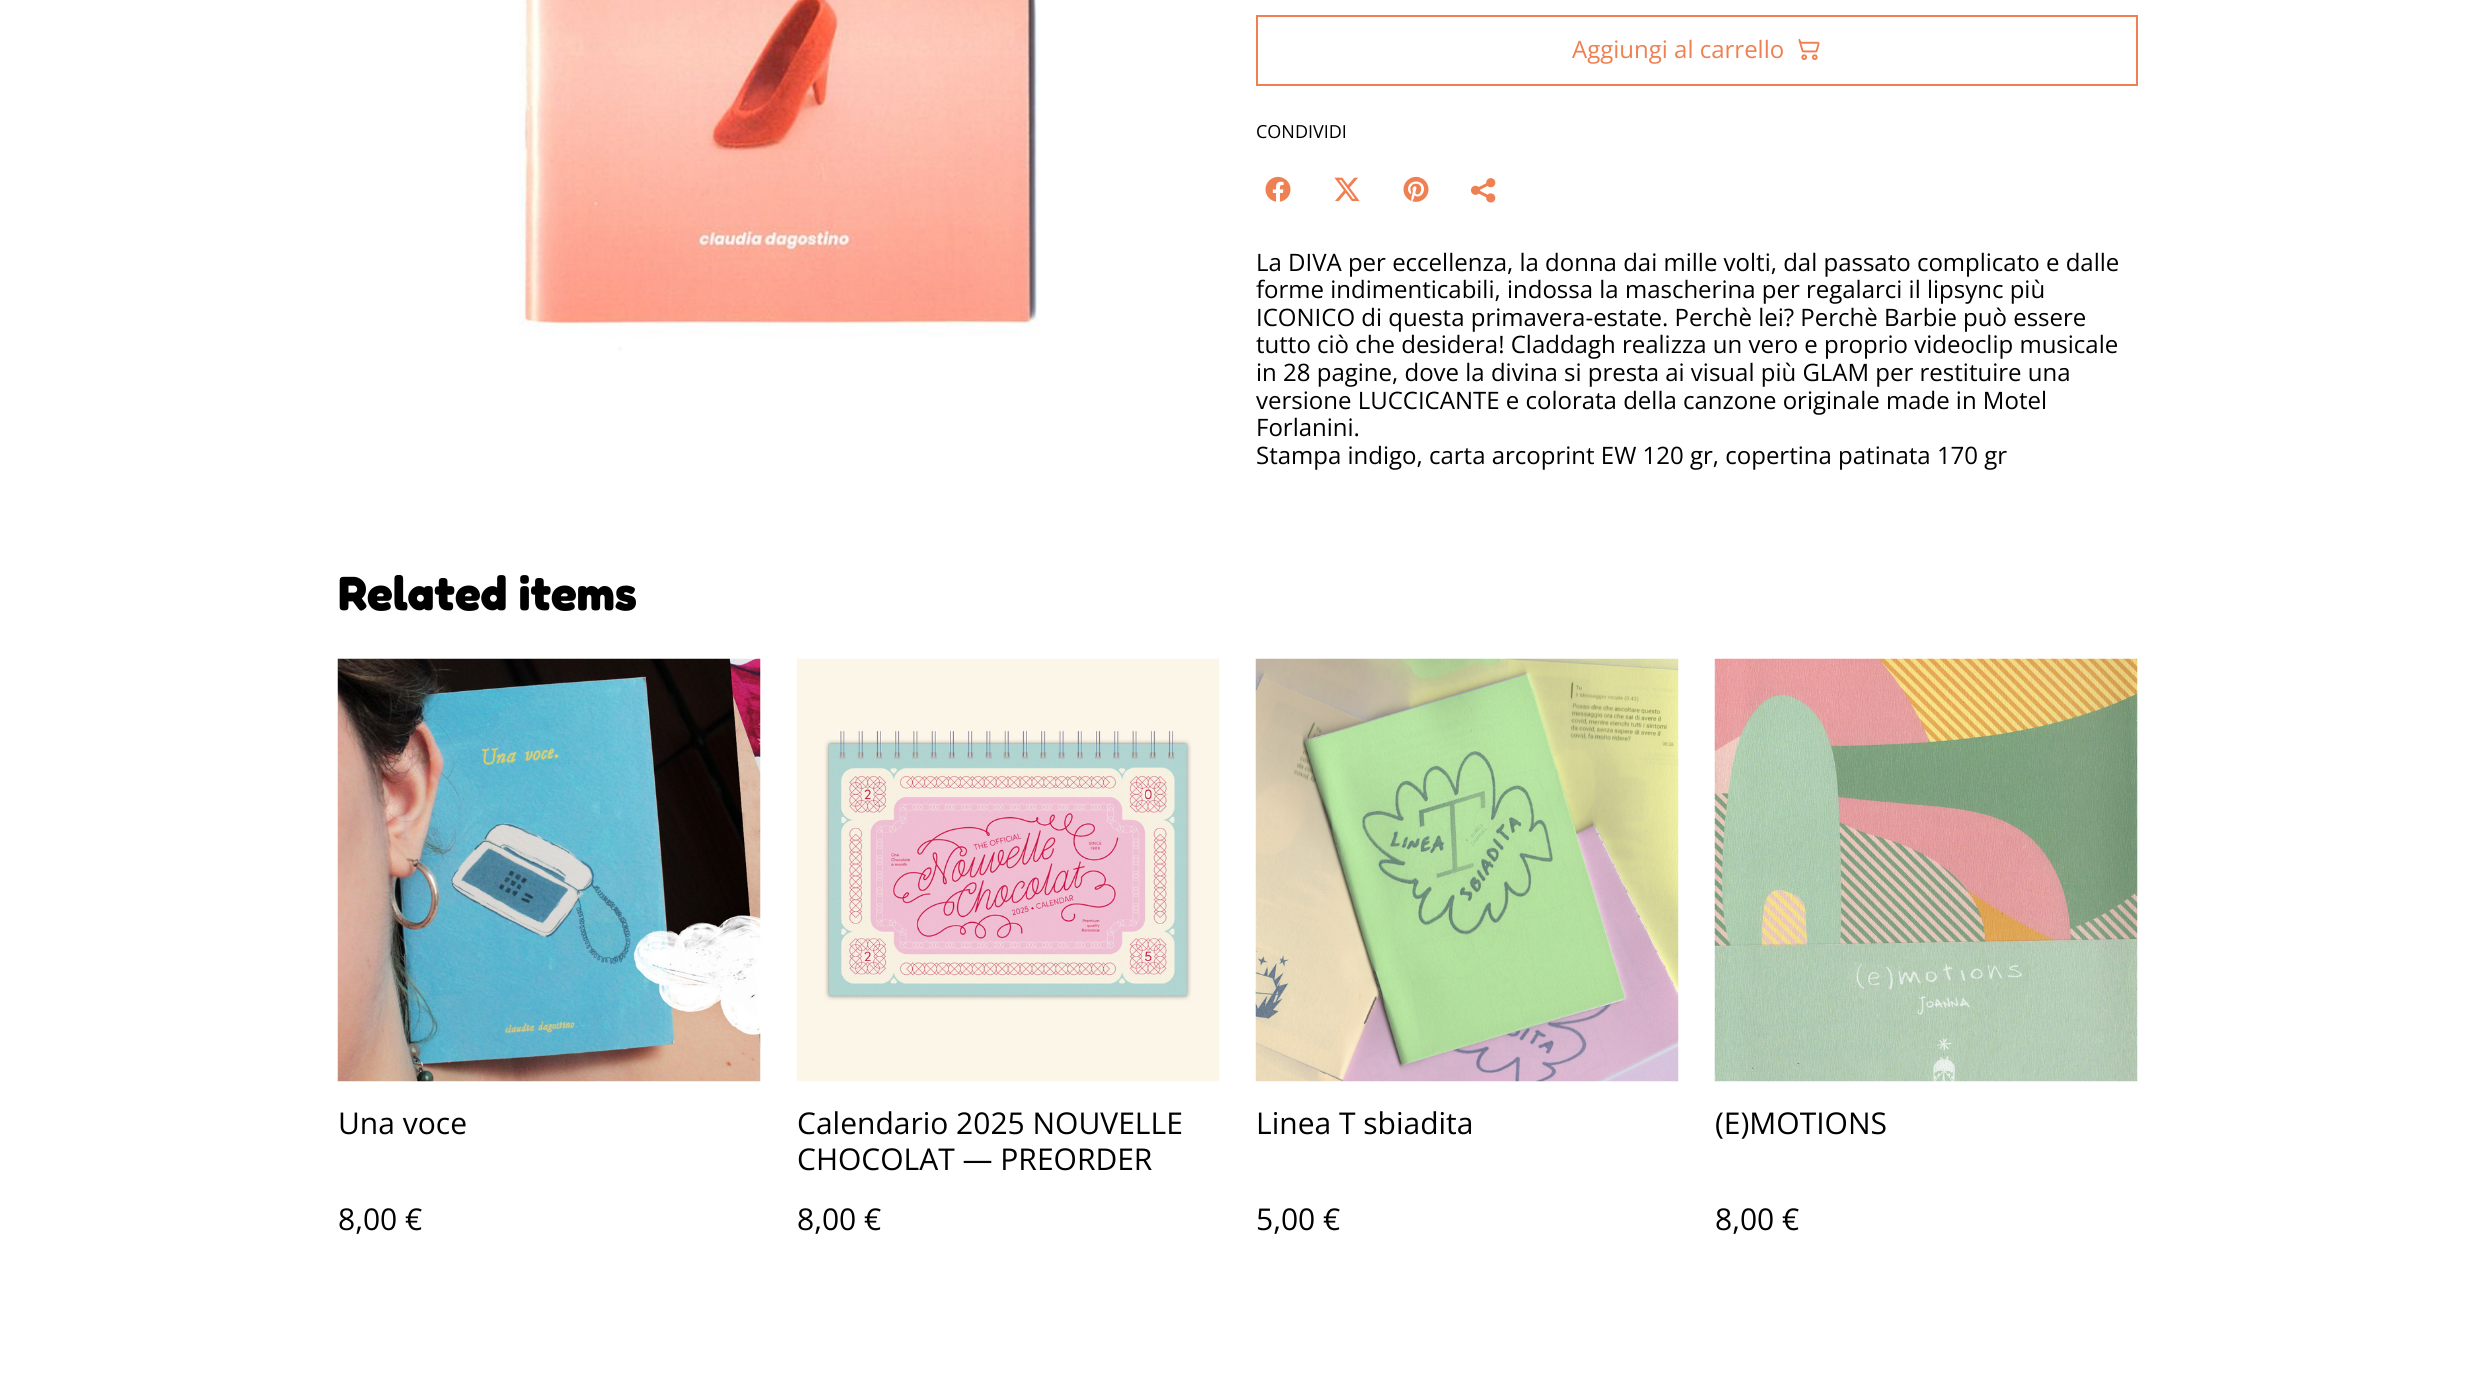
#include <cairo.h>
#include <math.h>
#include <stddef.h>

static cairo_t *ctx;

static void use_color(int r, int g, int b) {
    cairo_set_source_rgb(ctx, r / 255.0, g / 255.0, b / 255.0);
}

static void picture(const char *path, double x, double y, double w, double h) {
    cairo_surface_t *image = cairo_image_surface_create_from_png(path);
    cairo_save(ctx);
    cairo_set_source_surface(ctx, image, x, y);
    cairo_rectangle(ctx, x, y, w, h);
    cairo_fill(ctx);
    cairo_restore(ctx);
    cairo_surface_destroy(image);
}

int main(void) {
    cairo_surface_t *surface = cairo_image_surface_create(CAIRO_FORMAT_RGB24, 2474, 1400);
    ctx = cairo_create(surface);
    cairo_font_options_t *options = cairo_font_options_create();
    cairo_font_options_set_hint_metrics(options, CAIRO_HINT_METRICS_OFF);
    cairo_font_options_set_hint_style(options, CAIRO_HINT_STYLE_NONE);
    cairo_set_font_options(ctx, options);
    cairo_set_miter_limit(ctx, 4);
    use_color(255, 255, 255);
    cairo_paint(ctx);
    picture("img1.png", 518, 0, 522, 351);
    cairo_rectangle(ctx, 1257, 16, 880, 69);
    use_color(238, 128, 81);
    cairo_stroke(ctx);
    cairo_select_font_face(ctx, "Open Sans", CAIRO_FONT_SLANT_NORMAL, CAIRO_FONT_WEIGHT_NORMAL);
    cairo_set_font_size(ctx, 24);
    cairo_move_to(ctx, 1572, 58);
    cairo_show_text(ctx, "Aggiungi al carrello");
    picture("img2.png", 1798, 38, 22, 22);
    cairo_set_font_size(ctx, 18);
    use_color(0, 0, 0);
    cairo_move_to(ctx, 1256, 138);
    cairo_show_text(ctx, "CONDIVIDI");
    picture("img3.png", 1265, 176, 26, 26);
    picture("img4.png", 1334, 177, 26, 25);
    picture("img5.png", 1403, 176, 26, 26);
    picture("img6.png", 1470, 178, 26, 25);
    cairo_set_font_size(ctx, 24);
    cairo_move_to(ctx, 1256, 271);
    cairo_show_text(ctx, "La DIVA per eccellenza, la donna dai mille volti, dal passato complicato e dalle");
    cairo_move_to(ctx, 1256, 298);
    cairo_show_text(ctx, "forme indimenticabili, indossa la mascherina per regalarci il lipsync più");
    cairo_move_to(ctx, 1256, 326);
    cairo_show_text(ctx, "ICONICO di questa primavera-estate. Perchè lei? Perchè Barbie può essere");
    cairo_move_to(ctx, 1256, 353);
    cairo_show_text(ctx, "tutto ciò che desidera! Claddagh realizza un vero e proprio videoclip musicale");
    cairo_move_to(ctx, 1256, 381);
    cairo_show_text(ctx, "in 28 pagine, dove la divina si presta ai visual più GLAM per restituire una");
    cairo_move_to(ctx, 1256, 409);
    cairo_show_text(ctx, "versione LUCCICANTE e colorata della canzone originale made in Motel");
    cairo_move_to(ctx, 1256, 436);
    cairo_show_text(ctx, "Forlanini.");
    cairo_move_to(ctx, 1256, 464);
    cairo_show_text(ctx, "Stampa indigo, carta arcoprint EW 120 gr, copertina patinata 170 gr");
    cairo_select_font_face(ctx, "Fredoka", CAIRO_FONT_SLANT_NORMAL, CAIRO_FONT_WEIGHT_BOLD);
    cairo_set_font_size(ctx, 48);
    cairo_move_to(ctx, 338, 610);
    cairo_show_text(ctx, "Related items");
    picture("img7.png", 337, 658, 424, 424);
    cairo_select_font_face(ctx, "Open Sans", CAIRO_FONT_SLANT_NORMAL, CAIRO_FONT_WEIGHT_NORMAL);
    cairo_set_font_size(ctx, 30);
    cairo_move_to(ctx, 338, 1134);
    cairo_show_text(ctx, "Una voce");
    cairo_move_to(ctx, 338, 1230);
    cairo_show_text(ctx, "8,00 €");
    picture("img8.png", 796, 658, 424, 424);
    cairo_move_to(ctx, 797, 1134);
    cairo_show_text(ctx, "Calendario 2025 NOUVELLE");
    cairo_move_to(ctx, 797, 1170);
    cairo_show_text(ctx, "CHOCOLAT — PREORDER");
    cairo_move_to(ctx, 797, 1230);
    cairo_show_text(ctx, "8,00 €");
    picture("img9.png", 1255, 658, 424, 424);
    cairo_move_to(ctx, 1256, 1134);
    cairo_show_text(ctx, "Linea T sbiadita");
    cairo_move_to(ctx, 1256, 1230);
    cairo_show_text(ctx, "5,00 €");
    picture("img10.png", 1714, 658, 424, 424);
    cairo_move_to(ctx, 1715, 1134);
    cairo_show_text(ctx, "(E)MOTIONS");
    cairo_move_to(ctx, 1715, 1230);
    cairo_show_text(ctx, "8,00 €");
    cairo_surface_write_to_png(surface, "result.png");
    cairo_font_options_destroy(options);
    cairo_destroy(ctx);
    cairo_surface_destroy(surface);
    return 0;
}
